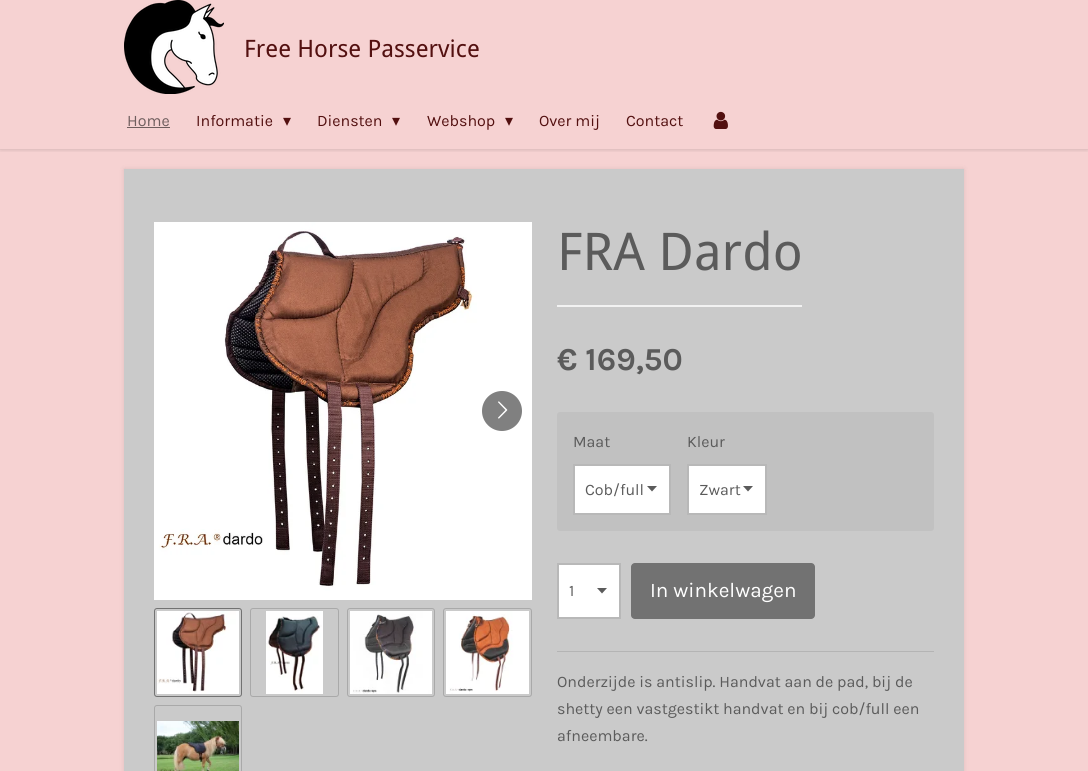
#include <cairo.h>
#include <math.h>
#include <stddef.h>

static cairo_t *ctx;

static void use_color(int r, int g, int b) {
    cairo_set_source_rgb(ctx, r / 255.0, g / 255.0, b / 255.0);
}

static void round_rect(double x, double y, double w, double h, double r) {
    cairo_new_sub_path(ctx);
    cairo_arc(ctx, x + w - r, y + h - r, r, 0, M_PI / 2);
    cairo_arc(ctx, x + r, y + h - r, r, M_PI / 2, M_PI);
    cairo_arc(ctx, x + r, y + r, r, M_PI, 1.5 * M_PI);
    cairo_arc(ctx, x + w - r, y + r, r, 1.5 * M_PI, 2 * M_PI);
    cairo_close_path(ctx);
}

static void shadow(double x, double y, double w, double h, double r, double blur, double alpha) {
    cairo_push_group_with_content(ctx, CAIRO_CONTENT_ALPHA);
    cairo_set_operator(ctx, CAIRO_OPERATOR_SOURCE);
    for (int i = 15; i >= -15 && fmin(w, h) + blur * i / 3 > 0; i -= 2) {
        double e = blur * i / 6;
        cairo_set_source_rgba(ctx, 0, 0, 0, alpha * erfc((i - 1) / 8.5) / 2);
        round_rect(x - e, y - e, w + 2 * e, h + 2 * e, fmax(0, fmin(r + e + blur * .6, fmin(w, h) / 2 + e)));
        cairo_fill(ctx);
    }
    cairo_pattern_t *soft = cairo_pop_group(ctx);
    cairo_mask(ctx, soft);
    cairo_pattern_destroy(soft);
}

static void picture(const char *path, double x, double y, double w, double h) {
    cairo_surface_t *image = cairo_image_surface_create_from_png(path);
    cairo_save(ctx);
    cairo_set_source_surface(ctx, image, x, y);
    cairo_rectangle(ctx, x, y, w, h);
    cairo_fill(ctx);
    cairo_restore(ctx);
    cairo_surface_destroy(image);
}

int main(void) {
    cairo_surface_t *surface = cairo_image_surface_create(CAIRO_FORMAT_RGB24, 1088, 771);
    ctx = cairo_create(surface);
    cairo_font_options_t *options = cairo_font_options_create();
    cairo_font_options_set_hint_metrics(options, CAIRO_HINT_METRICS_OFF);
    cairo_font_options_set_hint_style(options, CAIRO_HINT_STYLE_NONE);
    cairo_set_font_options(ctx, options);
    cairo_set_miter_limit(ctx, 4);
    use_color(246, 210, 210);
    cairo_paint(ctx);
    cairo_save(ctx);
    cairo_rectangle(ctx, 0, 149, 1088, 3);
    cairo_clip(ctx);
    use_color(0, 0, 0);
    shadow(0, 0, 1088, 149, 0, 2.5, 0.2);
    cairo_restore(ctx);
    picture("img1.png", 124, 0, 100, 94);
    cairo_select_font_face(ctx, "Droid Sans", CAIRO_FONT_SLANT_NORMAL, CAIRO_FONT_WEIGHT_NORMAL);
    cairo_set_font_size(ctx, 24);
    use_color(83, 16, 16);
    cairo_move_to(ctx, 244, 57);
    cairo_show_text(ctx, "Free Horse Passervice");
    cairo_select_font_face(ctx, "Karla", CAIRO_FONT_SLANT_NORMAL, CAIRO_FONT_WEIGHT_NORMAL);
    cairo_set_font_size(ctx, 16);
    use_color(111, 94, 94);
    cairo_move_to(ctx, 127, 126);
    cairo_show_text(ctx, "Home");
    cairo_rectangle(ctx, 127, 127, 43, 1);
    cairo_fill(ctx);
    use_color(83, 16, 16);
    cairo_move_to(ctx, 196, 126);
    cairo_show_text(ctx, "Informatie");
    cairo_select_font_face(ctx, "DejaVu Sans", CAIRO_FONT_SLANT_NORMAL, CAIRO_FONT_WEIGHT_NORMAL);
    cairo_move_to(ctx, 283, 126);
    cairo_show_text(ctx, "▾");
    cairo_select_font_face(ctx, "Karla", CAIRO_FONT_SLANT_NORMAL, CAIRO_FONT_WEIGHT_NORMAL);
    cairo_move_to(ctx, 317, 126);
    cairo_show_text(ctx, "Diensten");
    cairo_select_font_face(ctx, "DejaVu Sans", CAIRO_FONT_SLANT_NORMAL, CAIRO_FONT_WEIGHT_NORMAL);
    cairo_move_to(ctx, 392, 126);
    cairo_show_text(ctx, "▾");
    cairo_select_font_face(ctx, "Karla", CAIRO_FONT_SLANT_NORMAL, CAIRO_FONT_WEIGHT_NORMAL);
    cairo_move_to(ctx, 427, 126);
    cairo_show_text(ctx, "Webshop");
    cairo_select_font_face(ctx, "DejaVu Sans", CAIRO_FONT_SLANT_NORMAL, CAIRO_FONT_WEIGHT_NORMAL);
    cairo_move_to(ctx, 505, 126);
    cairo_show_text(ctx, "▾");
    cairo_select_font_face(ctx, "Karla", CAIRO_FONT_SLANT_NORMAL, CAIRO_FONT_WEIGHT_NORMAL);
    cairo_move_to(ctx, 539, 126);
    cairo_show_text(ctx, "Over mij");
    cairo_move_to(ctx, 626, 126);
    cairo_show_text(ctx, "Contact");
    picture("img2.png", 713, 111, 15, 18);
    use_color(0, 0, 0);
    shadow(124, 169, 840, 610, 0, 2.5, 0.1);
    use_color(202, 202, 202);
    cairo_rectangle(ctx, 124, 169, 840, 602);
    cairo_fill(ctx);
    picture("img3.png", 154, 222, 378, 378);
    use_color(128, 128, 128);
    cairo_arc(ctx, 502, 411, 20, 0, 2 * M_PI);
    cairo_fill(ctx);
    picture("img4.png", 498, 401, 10, 18);
    round_rect(154.5, 608.5, 87, 88, 2.5);
    use_color(114, 114, 114);
    cairo_set_line_width(ctx, 1);
    cairo_stroke(ctx);
    picture("img5.png", 157, 611, 82, 83);
    round_rect(250.5, 608.5, 88, 88, 2.5);
    use_color(169, 169, 169);
    cairo_stroke(ctx);
    picture("img6.png", 266, 611, 57, 83);
    round_rect(347.5, 608.5, 87, 88, 2.5);
    cairo_stroke(ctx);
    picture("img7.png", 350, 611, 82, 83);
    round_rect(443.5, 608.5, 88, 88, 2.5);
    cairo_stroke(ctx);
    picture("img8.png", 446, 611, 83, 83);
    round_rect(154.5, 705.5, 87, 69, 2.5);
    cairo_stroke(ctx);
    picture("img9.png", 157, 721, 82, 50);
    use_color(242, 242, 242);
    cairo_rectangle(ctx, 557, 305, 245, 2);
    cairo_fill(ctx);
    cairo_select_font_face(ctx, "Droid Sans", CAIRO_FONT_SLANT_NORMAL, CAIRO_FONT_WEIGHT_NORMAL);
    cairo_set_font_size(ctx, 52);
    use_color(91, 91, 91);
    cairo_move_to(ctx, 557, 270);
    cairo_show_text(ctx, "FRA Dardo");
    cairo_select_font_face(ctx, "Karla", CAIRO_FONT_SLANT_NORMAL, CAIRO_FONT_WEIGHT_BOLD);
    cairo_set_font_size(ctx, 32);
    cairo_move_to(ctx, 557, 370);
    cairo_show_text(ctx, "€ 169,50");
    use_color(193, 193, 193);
    round_rect(557, 412, 377, 119, 3);
    cairo_fill(ctx);
    cairo_select_font_face(ctx, "Karla", CAIRO_FONT_SLANT_NORMAL, CAIRO_FONT_WEIGHT_NORMAL);
    cairo_set_font_size(ctx, 16);
    use_color(91, 91, 91);
    cairo_move_to(ctx, 573, 447);
    cairo_show_text(ctx, "Maat");
    use_color(255, 255, 255);
    cairo_rectangle(ctx, 575, 466, 94, 47);
    cairo_fill(ctx);
    use_color(91, 91, 91);
    cairo_new_path(ctx);
    cairo_move_to(ctx, 652, 491.5);
    cairo_line_to(ctx, 647, 486);
    cairo_line_to(ctx, 657, 486);
    cairo_close_path(ctx);
    cairo_fill(ctx);
    cairo_rectangle(ctx, 574, 465, 96, 49);
    use_color(184, 184, 184);
    cairo_set_line_width(ctx, 2);
    cairo_stroke(ctx);
    use_color(91, 91, 91);
    cairo_move_to(ctx, 585, 495);
    cairo_show_text(ctx, "Cob/full");
    cairo_move_to(ctx, 687, 447);
    cairo_show_text(ctx, "Kleur");
    use_color(255, 255, 255);
    cairo_rectangle(ctx, 689, 466, 76, 47);
    cairo_fill(ctx);
    use_color(91, 91, 91);
    cairo_new_path(ctx);
    cairo_move_to(ctx, 748, 491.5);
    cairo_line_to(ctx, 743, 486);
    cairo_line_to(ctx, 753, 486);
    cairo_close_path(ctx);
    cairo_fill(ctx);
    cairo_rectangle(ctx, 688, 465, 78, 49);
    use_color(184, 184, 184);
    cairo_stroke(ctx);
    use_color(91, 91, 91);
    cairo_move_to(ctx, 699, 495);
    cairo_show_text(ctx, "Zwart");
    use_color(255, 255, 255);
    cairo_rectangle(ctx, 559, 565, 60, 52);
    cairo_fill(ctx);
    use_color(91, 91, 91);
    cairo_new_path(ctx);
    cairo_move_to(ctx, 602, 593.5);
    cairo_line_to(ctx, 597, 588);
    cairo_line_to(ctx, 607, 588);
    cairo_close_path(ctx);
    cairo_fill(ctx);
    cairo_rectangle(ctx, 558, 564, 62, 54);
    use_color(184, 184, 184);
    cairo_stroke(ctx);
    use_color(91, 91, 91);
    cairo_move_to(ctx, 569, 596);
    cairo_show_text(ctx, "1");
    use_color(114, 114, 114);
    round_rect(631, 563, 184, 56, 4);
    cairo_fill(ctx);
    cairo_set_font_size(ctx, 20.75);
    use_color(255, 255, 255);
    cairo_move_to(ctx, 650, 597);
    cairo_show_text(ctx, "In winkelwagen");
    use_color(180, 180, 180);
    cairo_rectangle(ctx, 557, 651, 377, 1);
    cairo_fill(ctx);
    cairo_set_font_size(ctx, 16);
    use_color(91, 91, 91);
    cairo_move_to(ctx, 557, 687);
    cairo_show_text(ctx, "Onderzijde is antislip. Handvat aan de pad, bij de");
    cairo_move_to(ctx, 557, 714);
    cairo_show_text(ctx, "shetty een vastgestikt handvat en bij cob/full een");
    cairo_move_to(ctx, 557, 741);
    cairo_show_text(ctx, "afneembare.");
    cairo_surface_write_to_png(surface, "result.png");
    cairo_font_options_destroy(options);
    cairo_destroy(ctx);
    cairo_surface_destroy(surface);
    return 0;
}
